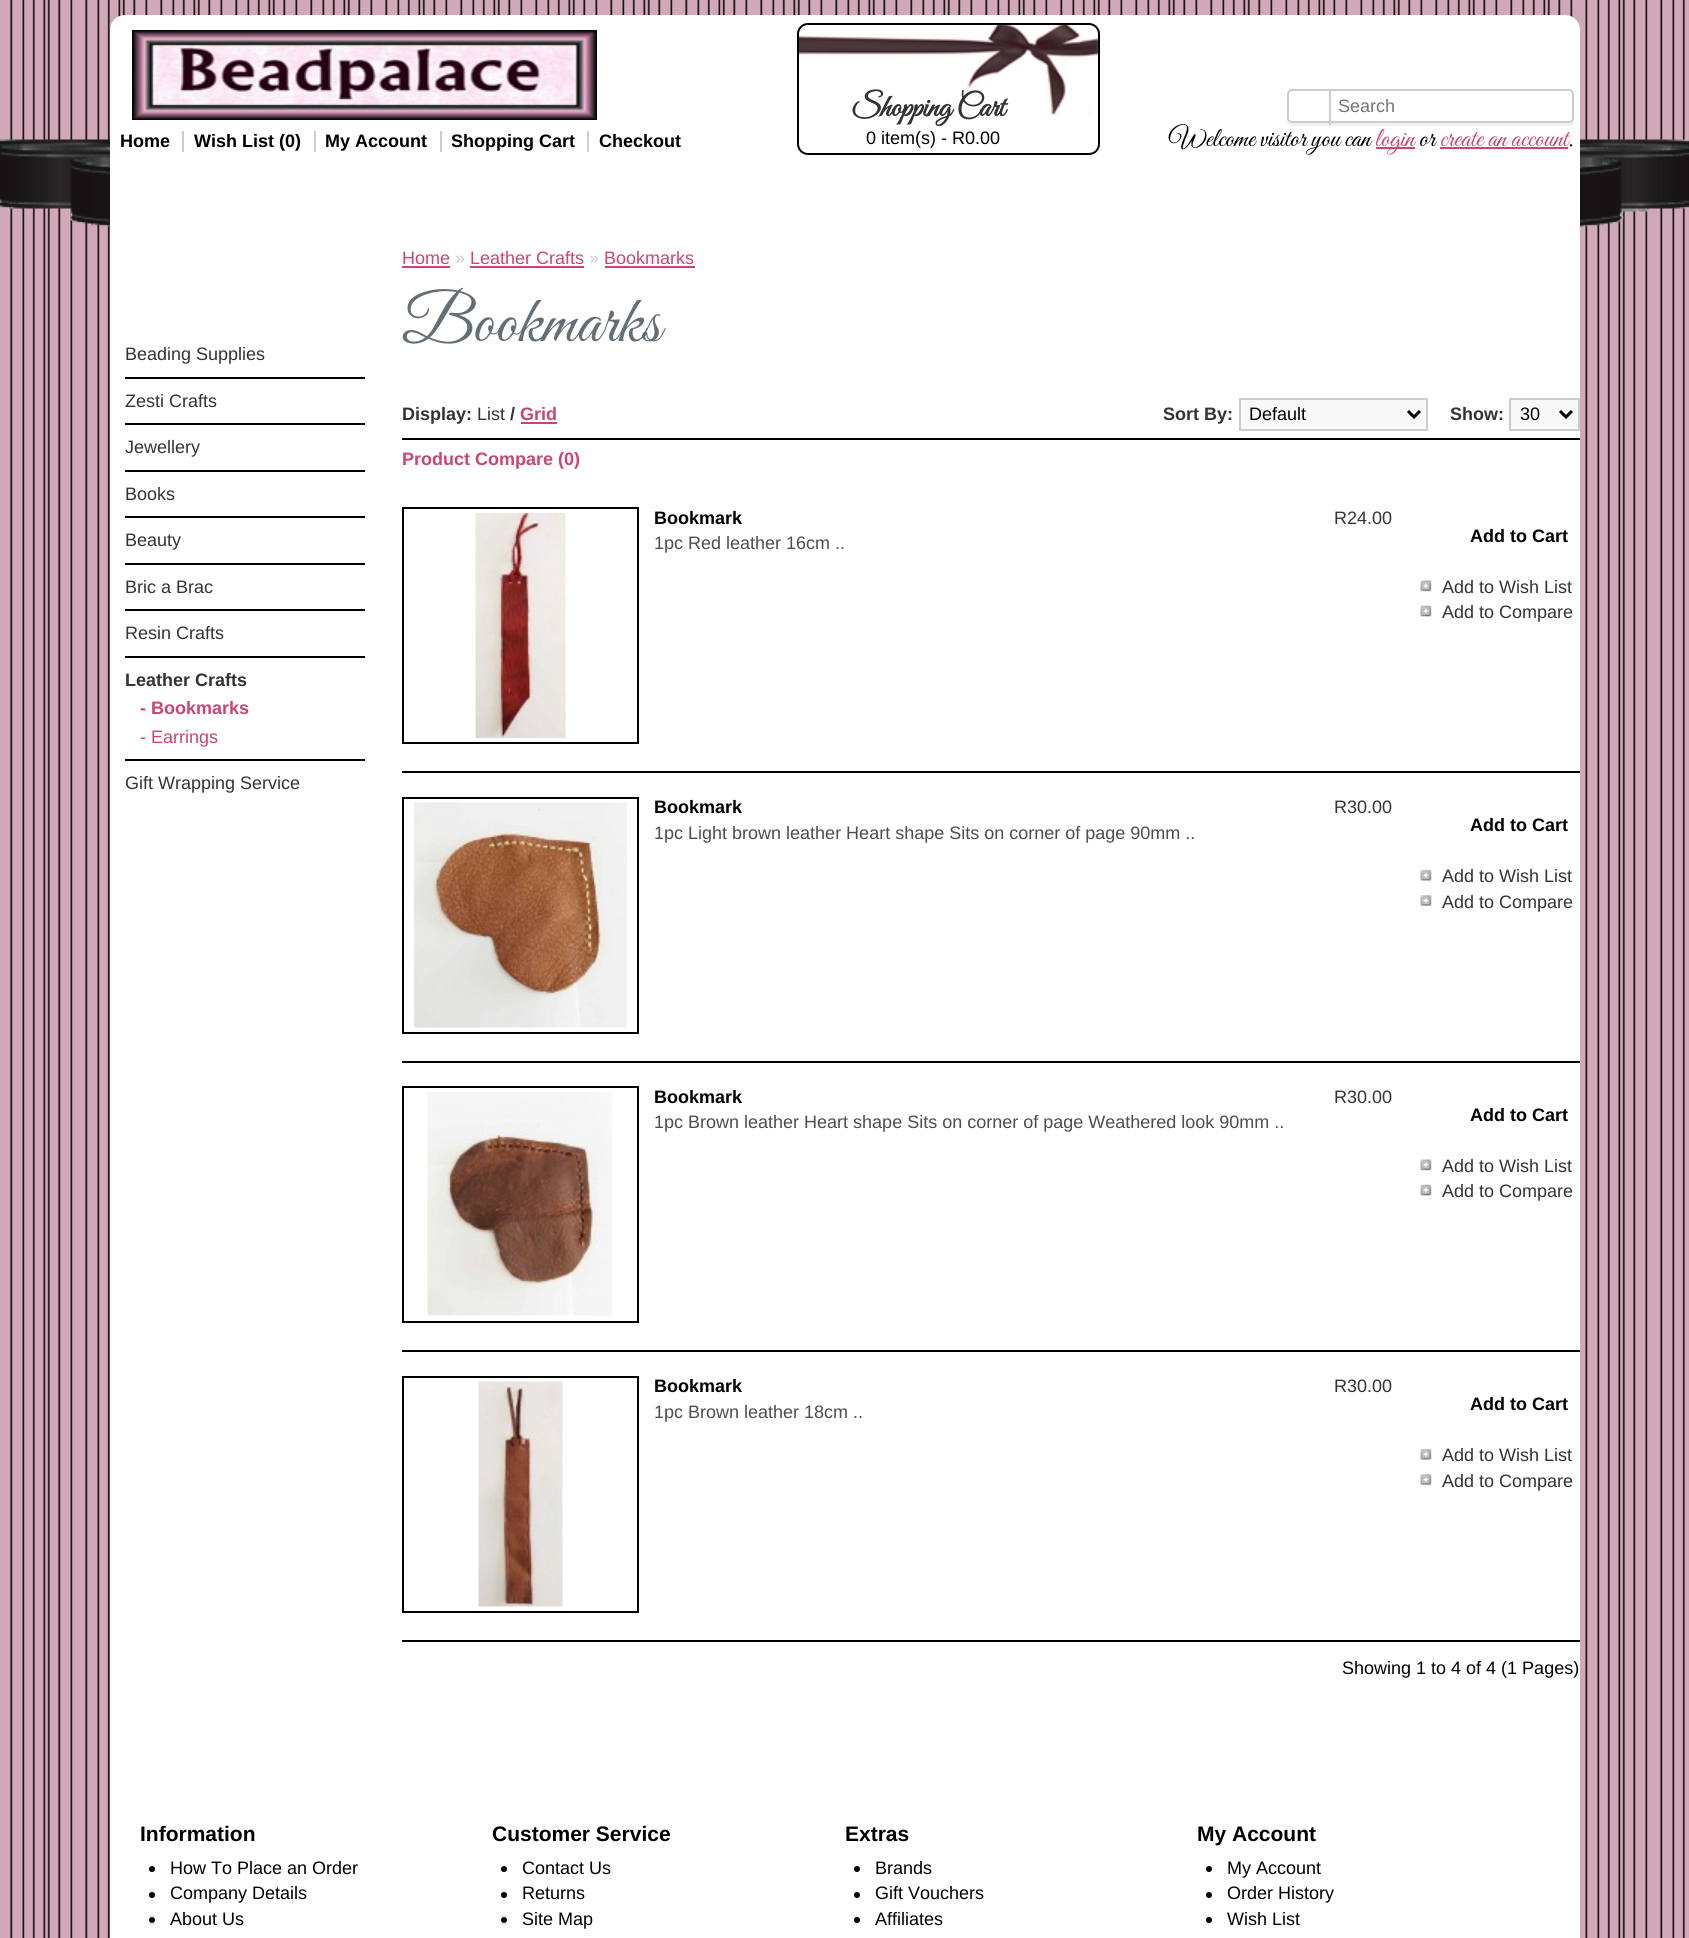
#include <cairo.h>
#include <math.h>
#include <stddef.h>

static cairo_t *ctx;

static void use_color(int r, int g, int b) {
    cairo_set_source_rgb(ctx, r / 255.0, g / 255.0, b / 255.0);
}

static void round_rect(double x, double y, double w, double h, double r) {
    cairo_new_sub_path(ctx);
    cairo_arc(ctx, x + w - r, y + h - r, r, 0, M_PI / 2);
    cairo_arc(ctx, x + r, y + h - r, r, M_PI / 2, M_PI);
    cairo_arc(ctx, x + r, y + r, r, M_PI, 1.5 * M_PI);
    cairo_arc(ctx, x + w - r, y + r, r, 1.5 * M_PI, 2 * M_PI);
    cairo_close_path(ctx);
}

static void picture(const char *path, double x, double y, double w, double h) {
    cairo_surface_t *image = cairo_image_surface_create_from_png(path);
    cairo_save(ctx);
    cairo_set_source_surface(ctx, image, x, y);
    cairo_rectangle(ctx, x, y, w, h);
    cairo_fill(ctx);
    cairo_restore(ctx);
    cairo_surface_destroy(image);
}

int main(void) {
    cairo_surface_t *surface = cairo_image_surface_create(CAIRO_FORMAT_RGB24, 1689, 1938);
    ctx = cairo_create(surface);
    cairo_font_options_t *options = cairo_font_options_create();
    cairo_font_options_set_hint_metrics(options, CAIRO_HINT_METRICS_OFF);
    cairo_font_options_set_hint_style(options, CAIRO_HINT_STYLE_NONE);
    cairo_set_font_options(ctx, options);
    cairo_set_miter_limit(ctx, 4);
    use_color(209, 168, 183);
    cairo_paint(ctx);
    picture("img1.png", 10, 0, 1675, 1938);
    picture("img12.png", 0, 139, 1689, 88);
    use_color(255, 255, 255);
    round_rect(110, 15, 1470, 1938, 15);
    cairo_fill(ctx);
    picture("img2.png", 132, 30, 465, 90);
    picture("img3.png", 798, 24, 300, 93);
    round_rect(798, 24, 301, 130, 10);
    use_color(0, 0, 0);
    cairo_stroke(ctx);
    cairo_select_font_face(ctx, "Great Vibes", CAIRO_FONT_SLANT_NORMAL, CAIRO_FONT_WEIGHT_BOLD);
    cairo_set_font_size(ctx, 31.5);
    use_color(51, 51, 51);
    cairo_move_to(ctx, 851, 116);
    cairo_show_text(ctx, "Shopping Cart");
    cairo_select_font_face(ctx, "Liberation Sans", CAIRO_FONT_SLANT_NORMAL, CAIRO_FONT_WEIGHT_NORMAL);
    cairo_set_font_size(ctx, 18);
    use_color(0, 0, 0);
    cairo_move_to(ctx, 866, 144);
    cairo_show_text(ctx, "0 item(s) - R0.00");
    cairo_select_font_face(ctx, "Great Vibes", CAIRO_FONT_SLANT_NORMAL, CAIRO_FONT_WEIGHT_NORMAL);
    cairo_set_font_size(ctx, 27);
    cairo_move_to(ctx, 1169, 146);
    cairo_show_text(ctx, "Welcome visitor you can");
    use_color(240, 240, 240);
    cairo_new_path(ctx);
    cairo_move_to(ctx, 1287, 118);
    cairo_line_to(ctx, 1287, 121);
    cairo_curve_to(ctx, 1287, 124, 1289, 126, 1292, 126);
    cairo_line_to(ctx, 1569, 126);
    cairo_curve_to(ctx, 1572, 126, 1574, 124, 1574, 121);
    cairo_line_to(ctx, 1574, 97);
    cairo_line_to(ctx, 1574, 95);
    cairo_line_to(ctx, 1574, 118);
    cairo_curve_to(ctx, 1574, 121, 1571, 123, 1569, 123);
    cairo_line_to(ctx, 1292, 123);
    cairo_curve_to(ctx, 1289, 123, 1287, 121, 1287, 118);
    cairo_close_path(ctx);
    cairo_fill(ctx);
    use_color(255, 255, 255);
    round_rect(1288, 90, 285, 32, 4);
    cairo_fill_preserve(ctx);
    use_color(204, 204, 204);
    cairo_stroke(ctx);
    cairo_rectangle(ctx, 1329, 89, 2, 36);
    cairo_fill(ctx);
    cairo_select_font_face(ctx, "Liberation Sans", CAIRO_FONT_SLANT_NORMAL, CAIRO_FONT_WEIGHT_NORMAL);
    cairo_set_font_size(ctx, 18);
    use_color(117, 117, 117);
    cairo_move_to(ctx, 1338, 112);
    cairo_show_text(ctx, "Search");
    cairo_select_font_face(ctx, "Liberation Sans", CAIRO_FONT_SLANT_NORMAL, CAIRO_FONT_WEIGHT_BOLD);
    use_color(0, 0, 0);
    cairo_move_to(ctx, 120, 147);
    cairo_show_text(ctx, "Home");
    use_color(204, 204, 204);
    cairo_rectangle(ctx, 182, 131, 2, 21);
    cairo_fill(ctx);
    use_color(0, 0, 0);
    cairo_move_to(ctx, 194, 147);
    cairo_show_text(ctx, "Wish List (0)");
    use_color(204, 204, 204);
    cairo_rectangle(ctx, 314, 131, 2, 21);
    cairo_fill(ctx);
    use_color(0, 0, 0);
    cairo_move_to(ctx, 325, 147);
    cairo_show_text(ctx, "My Account");
    use_color(204, 204, 204);
    cairo_rectangle(ctx, 440, 131, 2, 21);
    cairo_fill(ctx);
    use_color(0, 0, 0);
    cairo_move_to(ctx, 451, 147);
    cairo_show_text(ctx, "Shopping Cart");
    use_color(204, 204, 204);
    cairo_rectangle(ctx, 587, 131, 2, 21);
    cairo_fill(ctx);
    use_color(0, 0, 0);
    cairo_move_to(ctx, 599, 147);
    cairo_show_text(ctx, "Checkout");
    use_color(202, 69, 112);
    cairo_rectangle(ctx, 1376, 147, 39, 2);
    cairo_fill(ctx);
    cairo_select_font_face(ctx, "Great Vibes", CAIRO_FONT_SLANT_NORMAL, CAIRO_FONT_WEIGHT_NORMAL);
    cairo_set_font_size(ctx, 27);
    cairo_move_to(ctx, 1375, 146);
    cairo_show_text(ctx, "login");
    use_color(0, 0, 0);
    cairo_move_to(ctx, 1419, 146);
    cairo_show_text(ctx, "or");
    use_color(202, 69, 112);
    cairo_move_to(ctx, 1440, 146);
    cairo_show_text(ctx, "create an account");
    cairo_rectangle(ctx, 1440, 147, 128, 2);
    cairo_fill(ctx);
    use_color(0, 0, 0);
    cairo_move_to(ctx, 1568, 146);
    cairo_show_text(ctx, ".");
    cairo_select_font_face(ctx, "Liberation Sans", CAIRO_FONT_SLANT_NORMAL, CAIRO_FONT_WEIGHT_NORMAL);
    cairo_set_font_size(ctx, 18);
    use_color(51, 51, 51);
    cairo_move_to(ctx, 125, 360);
    cairo_show_text(ctx, "Beading Supplies");
    use_color(0, 0, 0);
    cairo_rectangle(ctx, 125, 377, 240, 2);
    cairo_fill(ctx);
    use_color(51, 51, 51);
    cairo_move_to(ctx, 125, 407);
    cairo_show_text(ctx, "Zesti Crafts");
    use_color(0, 0, 0);
    cairo_rectangle(ctx, 125, 423, 240, 2);
    cairo_fill(ctx);
    use_color(51, 51, 51);
    cairo_move_to(ctx, 125, 453);
    cairo_show_text(ctx, "Jewellery");
    use_color(0, 0, 0);
    cairo_rectangle(ctx, 125, 470, 240, 2);
    cairo_fill(ctx);
    use_color(51, 51, 51);
    cairo_move_to(ctx, 125, 500);
    cairo_show_text(ctx, "Books");
    use_color(0, 0, 0);
    cairo_rectangle(ctx, 125, 516, 240, 2);
    cairo_fill(ctx);
    use_color(51, 51, 51);
    cairo_move_to(ctx, 125, 546);
    cairo_show_text(ctx, "Beauty");
    use_color(0, 0, 0);
    cairo_rectangle(ctx, 125, 563, 240, 2);
    cairo_fill(ctx);
    use_color(51, 51, 51);
    cairo_move_to(ctx, 125, 593);
    cairo_show_text(ctx, "Bric a Brac");
    use_color(0, 0, 0);
    cairo_rectangle(ctx, 125, 609, 240, 2);
    cairo_fill(ctx);
    use_color(51, 51, 51);
    cairo_move_to(ctx, 125, 639);
    cairo_show_text(ctx, "Resin Crafts");
    use_color(0, 0, 0);
    cairo_rectangle(ctx, 125, 656, 240, 2);
    cairo_fill(ctx);
    cairo_select_font_face(ctx, "Liberation Sans", CAIRO_FONT_SLANT_NORMAL, CAIRO_FONT_WEIGHT_BOLD);
    use_color(51, 51, 51);
    cairo_move_to(ctx, 125, 686);
    cairo_show_text(ctx, "Leather Crafts");
    use_color(202, 69, 112);
    cairo_move_to(ctx, 140, 714);
    cairo_show_text(ctx, "- Bookmarks");
    cairo_select_font_face(ctx, "Liberation Sans", CAIRO_FONT_SLANT_NORMAL, CAIRO_FONT_WEIGHT_NORMAL);
    cairo_move_to(ctx, 140, 743);
    cairo_show_text(ctx, "- Earrings");
    use_color(0, 0, 0);
    cairo_rectangle(ctx, 125, 759, 240, 2);
    cairo_fill(ctx);
    use_color(51, 51, 51);
    cairo_move_to(ctx, 125, 789);
    cairo_show_text(ctx, "Gift Wrapping Service");
    use_color(202, 69, 112);
    cairo_move_to(ctx, 402, 264);
    cairo_show_text(ctx, "Home");
    cairo_rectangle(ctx, 402, 266, 48, 2);
    cairo_fill(ctx);
    use_color(204, 204, 204);
    cairo_move_to(ctx, 455, 264);
    cairo_show_text(ctx, "»");
    use_color(202, 69, 112);
    cairo_move_to(ctx, 470, 264);
    cairo_show_text(ctx, "Leather Crafts");
    cairo_rectangle(ctx, 470, 266, 114, 2);
    cairo_fill(ctx);
    use_color(204, 204, 204);
    cairo_move_to(ctx, 589, 264);
    cairo_show_text(ctx, "»");
    use_color(202, 69, 112);
    cairo_move_to(ctx, 604, 264);
    cairo_show_text(ctx, "Bookmarks");
    cairo_rectangle(ctx, 605, 266, 90, 2);
    cairo_fill(ctx);
    cairo_select_font_face(ctx, "Great Vibes", CAIRO_FONT_SLANT_NORMAL, CAIRO_FONT_WEIGHT_NORMAL);
    cairo_set_font_size(ctx, 67.5);
    use_color(99, 110, 117);
    cairo_move_to(ctx, 402, 341);
    cairo_show_text(ctx, "Bookmarks");
    use_color(0, 0, 0);
    cairo_rectangle(ctx, 402, 438, 1178, 2);
    cairo_fill(ctx);
    cairo_select_font_face(ctx, "Liberation Sans", CAIRO_FONT_SLANT_NORMAL, CAIRO_FONT_WEIGHT_BOLD);
    cairo_set_font_size(ctx, 18);
    use_color(51, 51, 51);
    cairo_move_to(ctx, 402, 420);
    cairo_show_text(ctx, "Display:");
    cairo_select_font_face(ctx, "Liberation Sans", CAIRO_FONT_SLANT_NORMAL, CAIRO_FONT_WEIGHT_NORMAL);
    cairo_move_to(ctx, 477, 420);
    cairo_show_text(ctx, "List");
    cairo_select_font_face(ctx, "Liberation Sans", CAIRO_FONT_SLANT_NORMAL, CAIRO_FONT_WEIGHT_BOLD);
    cairo_move_to(ctx, 510, 420);
    cairo_show_text(ctx, "/");
    use_color(202, 69, 112);
    cairo_move_to(ctx, 520, 420);
    cairo_show_text(ctx, "Grid");
    cairo_rectangle(ctx, 521, 422, 36, 2);
    cairo_fill(ctx);
    use_color(51, 51, 51);
    cairo_move_to(ctx, 1163, 420);
    cairo_show_text(ctx, "Sort By:");
    use_color(248, 248, 248);
    cairo_rectangle(ctx, 1240, 399, 187, 31);
    cairo_fill_preserve(ctx);
    use_color(204, 204, 204);
    cairo_stroke(ctx);
    cairo_new_path(ctx);
    cairo_move_to(ctx, 1408, 411);
    cairo_line_to(ctx, 1414, 417);
    cairo_line_to(ctx, 1420, 411);
    use_color(0, 0, 0);
    cairo_set_line_width(ctx, 3);
    cairo_stroke(ctx);
    cairo_select_font_face(ctx, "Liberation Sans", CAIRO_FONT_SLANT_NORMAL, CAIRO_FONT_WEIGHT_NORMAL);
    cairo_move_to(ctx, 1249, 420);
    cairo_show_text(ctx, "Default");
    cairo_select_font_face(ctx, "Liberation Sans", CAIRO_FONT_SLANT_NORMAL, CAIRO_FONT_WEIGHT_BOLD);
    use_color(51, 51, 51);
    cairo_move_to(ctx, 1450, 420);
    cairo_show_text(ctx, "Show:");
    use_color(248, 248, 248);
    cairo_rectangle(ctx, 1510, 399, 69, 31);
    cairo_fill_preserve(ctx);
    use_color(204, 204, 204);
    cairo_set_line_width(ctx, 2);
    cairo_stroke(ctx);
    cairo_new_path(ctx);
    cairo_move_to(ctx, 1560, 411);
    cairo_line_to(ctx, 1566, 417);
    cairo_line_to(ctx, 1572, 411);
    use_color(0, 0, 0);
    cairo_set_line_width(ctx, 3);
    cairo_stroke(ctx);
    cairo_select_font_face(ctx, "Liberation Sans", CAIRO_FONT_SLANT_NORMAL, CAIRO_FONT_WEIGHT_NORMAL);
    cairo_move_to(ctx, 1520, 420);
    cairo_show_text(ctx, "30");
    cairo_select_font_face(ctx, "Liberation Sans", CAIRO_FONT_SLANT_NORMAL, CAIRO_FONT_WEIGHT_BOLD);
    use_color(202, 69, 112);
    cairo_move_to(ctx, 402, 465);
    cairo_show_text(ctx, "Product Compare (0)");
    cairo_rectangle(ctx, 403, 508, 235, 235);
    use_color(0, 0, 0);
    cairo_set_line_width(ctx, 2);
    cairo_stroke(ctx);
    picture("img4.png", 474, 513, 93, 225);
    cairo_move_to(ctx, 654, 524);
    cairo_show_text(ctx, "Bookmark");
    cairo_select_font_face(ctx, "Liberation Sans", CAIRO_FONT_SLANT_NORMAL, CAIRO_FONT_WEIGHT_NORMAL);
    use_color(51, 51, 51);
    cairo_move_to(ctx, 1334, 524);
    cairo_show_text(ctx, "R24.00");
    use_color(77, 77, 77);
    cairo_move_to(ctx, 654, 549);
    cairo_show_text(ctx, "1pc Red leather 16cm ..");
    cairo_select_font_face(ctx, "Liberation Sans", CAIRO_FONT_SLANT_NORMAL, CAIRO_FONT_WEIGHT_BOLD);
    use_color(0, 0, 0);
    cairo_move_to(ctx, 1470, 542);
    cairo_show_text(ctx, "Add to Cart");
    picture("img5.png", 1420, 580, 12, 12);
    cairo_select_font_face(ctx, "Liberation Sans", CAIRO_FONT_SLANT_NORMAL, CAIRO_FONT_WEIGHT_NORMAL);
    use_color(51, 51, 51);
    cairo_move_to(ctx, 1442, 593);
    cairo_show_text(ctx, "Add to Wish List");
    picture("img6.png", 1420, 605, 12, 12);
    cairo_move_to(ctx, 1442, 618);
    cairo_show_text(ctx, "Add to Compare");
    use_color(0, 0, 0);
    cairo_rectangle(ctx, 402, 771, 1178, 2);
    cairo_fill(ctx);
    cairo_rectangle(ctx, 403, 798, 235, 235);
    cairo_stroke(ctx);
    picture("img7.png", 412, 802, 215, 226);
    cairo_select_font_face(ctx, "Liberation Sans", CAIRO_FONT_SLANT_NORMAL, CAIRO_FONT_WEIGHT_BOLD);
    cairo_move_to(ctx, 654, 813);
    cairo_show_text(ctx, "Bookmark");
    cairo_select_font_face(ctx, "Liberation Sans", CAIRO_FONT_SLANT_NORMAL, CAIRO_FONT_WEIGHT_NORMAL);
    use_color(51, 51, 51);
    cairo_move_to(ctx, 1334, 813);
    cairo_show_text(ctx, "R30.00");
    use_color(77, 77, 77);
    cairo_move_to(ctx, 654, 839);
    cairo_show_text(ctx, "1pc Light brown leather Heart shape Sits on corner of page 90mm ..");
    cairo_select_font_face(ctx, "Liberation Sans", CAIRO_FONT_SLANT_NORMAL, CAIRO_FONT_WEIGHT_BOLD);
    use_color(0, 0, 0);
    cairo_move_to(ctx, 1470, 831);
    cairo_show_text(ctx, "Add to Cart");
    picture("img8.png", 1420, 869, 12, 12);
    cairo_select_font_face(ctx, "Liberation Sans", CAIRO_FONT_SLANT_NORMAL, CAIRO_FONT_WEIGHT_NORMAL);
    use_color(51, 51, 51);
    cairo_move_to(ctx, 1442, 882);
    cairo_show_text(ctx, "Add to Wish List");
    picture("img9.png", 1420, 895, 12, 11);
    cairo_move_to(ctx, 1442, 908);
    cairo_show_text(ctx, "Add to Compare");
    use_color(0, 0, 0);
    cairo_rectangle(ctx, 402, 1061, 1178, 2);
    cairo_fill(ctx);
    cairo_rectangle(ctx, 403, 1087, 235, 235);
    cairo_stroke(ctx);
    picture("img10.png", 424, 1092, 188, 225);
    cairo_select_font_face(ctx, "Liberation Sans", CAIRO_FONT_SLANT_NORMAL, CAIRO_FONT_WEIGHT_BOLD);
    cairo_move_to(ctx, 654, 1103);
    cairo_show_text(ctx, "Bookmark");
    cairo_select_font_face(ctx, "Liberation Sans", CAIRO_FONT_SLANT_NORMAL, CAIRO_FONT_WEIGHT_NORMAL);
    use_color(51, 51, 51);
    cairo_move_to(ctx, 1334, 1103);
    cairo_show_text(ctx, "R30.00");
    use_color(77, 77, 77);
    cairo_move_to(ctx, 654, 1128);
    cairo_show_text(ctx, "1pc Brown leather Heart shape Sits on corner of page Weathered look 90mm ..");
    cairo_select_font_face(ctx, "Liberation Sans", CAIRO_FONT_SLANT_NORMAL, CAIRO_FONT_WEIGHT_BOLD);
    use_color(0, 0, 0);
    cairo_move_to(ctx, 1470, 1121);
    cairo_show_text(ctx, "Add to Cart");
    picture("img5.png", 1420, 1159, 12, 12);
    cairo_select_font_face(ctx, "Liberation Sans", CAIRO_FONT_SLANT_NORMAL, CAIRO_FONT_WEIGHT_NORMAL);
    use_color(51, 51, 51);
    cairo_move_to(ctx, 1442, 1172);
    cairo_show_text(ctx, "Add to Wish List");
    picture("img6.png", 1420, 1184, 12, 12);
    cairo_move_to(ctx, 1442, 1197);
    cairo_show_text(ctx, "Add to Compare");
    use_color(0, 0, 0);
    cairo_rectangle(ctx, 402, 1350, 1178, 2);
    cairo_fill(ctx);
    cairo_rectangle(ctx, 403, 1377, 235, 235);
    cairo_stroke(ctx);
    picture("img11.png", 478, 1381, 86, 226);
    cairo_select_font_face(ctx, "Liberation Sans", CAIRO_FONT_SLANT_NORMAL, CAIRO_FONT_WEIGHT_BOLD);
    cairo_move_to(ctx, 654, 1392);
    cairo_show_text(ctx, "Bookmark");
    cairo_select_font_face(ctx, "Liberation Sans", CAIRO_FONT_SLANT_NORMAL, CAIRO_FONT_WEIGHT_NORMAL);
    use_color(51, 51, 51);
    cairo_move_to(ctx, 1334, 1392);
    cairo_show_text(ctx, "R30.00");
    use_color(77, 77, 77);
    cairo_move_to(ctx, 654, 1418);
    cairo_show_text(ctx, "1pc Brown leather 18cm ..");
    cairo_select_font_face(ctx, "Liberation Sans", CAIRO_FONT_SLANT_NORMAL, CAIRO_FONT_WEIGHT_BOLD);
    use_color(0, 0, 0);
    cairo_move_to(ctx, 1470, 1410);
    cairo_show_text(ctx, "Add to Cart");
    picture("img8.png", 1420, 1448, 12, 12);
    cairo_select_font_face(ctx, "Liberation Sans", CAIRO_FONT_SLANT_NORMAL, CAIRO_FONT_WEIGHT_NORMAL);
    use_color(51, 51, 51);
    cairo_move_to(ctx, 1442, 1461);
    cairo_show_text(ctx, "Add to Wish List");
    picture("img9.png", 1420, 1474, 12, 11);
    cairo_move_to(ctx, 1442, 1487);
    cairo_show_text(ctx, "Add to Compare");
    use_color(0, 0, 0);
    cairo_rectangle(ctx, 402, 1640, 1178, 2);
    cairo_fill(ctx);
    cairo_move_to(ctx, 1342, 1674);
    cairo_show_text(ctx, "Showing 1 to 4 of 4 (1 Pages)");
    cairo_select_font_face(ctx, "Liberation Sans", CAIRO_FONT_SLANT_NORMAL, CAIRO_FONT_WEIGHT_BOLD);
    cairo_set_font_size(ctx, 21);
    cairo_move_to(ctx, 140, 1841);
    cairo_show_text(ctx, "Information");
    cairo_new_path(ctx);
    cairo_arc(ctx, 152, 1869, 3, 0, 2 * M_PI);
    cairo_fill(ctx);
    cairo_select_font_face(ctx, "Liberation Sans", CAIRO_FONT_SLANT_NORMAL, CAIRO_FONT_WEIGHT_NORMAL);
    cairo_set_font_size(ctx, 18);
    cairo_move_to(ctx, 170, 1874);
    cairo_show_text(ctx, "How To Place an Order");
    cairo_new_path(ctx);
    cairo_arc(ctx, 152, 1895, 3, 0, 2 * M_PI);
    cairo_fill(ctx);
    cairo_move_to(ctx, 170, 1899);
    cairo_show_text(ctx, "Company Details");
    cairo_new_path(ctx);
    cairo_arc(ctx, 152, 1920, 3, 0, 2 * M_PI);
    cairo_fill(ctx);
    cairo_move_to(ctx, 170, 1925);
    cairo_show_text(ctx, "About Us");
    cairo_select_font_face(ctx, "Liberation Sans", CAIRO_FONT_SLANT_NORMAL, CAIRO_FONT_WEIGHT_BOLD);
    cairo_set_font_size(ctx, 21);
    cairo_move_to(ctx, 492, 1841);
    cairo_show_text(ctx, "Customer Service");
    cairo_new_path(ctx);
    cairo_arc(ctx, 504, 1869, 3, 0, 2 * M_PI);
    cairo_fill(ctx);
    cairo_select_font_face(ctx, "Liberation Sans", CAIRO_FONT_SLANT_NORMAL, CAIRO_FONT_WEIGHT_NORMAL);
    cairo_set_font_size(ctx, 18);
    cairo_move_to(ctx, 522, 1874);
    cairo_show_text(ctx, "Contact Us");
    cairo_new_path(ctx);
    cairo_arc(ctx, 504, 1895, 3, 0, 2 * M_PI);
    cairo_fill(ctx);
    cairo_move_to(ctx, 522, 1899);
    cairo_show_text(ctx, "Returns");
    cairo_new_path(ctx);
    cairo_arc(ctx, 504, 1920, 3, 0, 2 * M_PI);
    cairo_fill(ctx);
    cairo_move_to(ctx, 522, 1925);
    cairo_show_text(ctx, "Site Map");
    cairo_select_font_face(ctx, "Liberation Sans", CAIRO_FONT_SLANT_NORMAL, CAIRO_FONT_WEIGHT_BOLD);
    cairo_set_font_size(ctx, 21);
    cairo_move_to(ctx, 845, 1841);
    cairo_show_text(ctx, "Extras");
    cairo_new_path(ctx);
    cairo_arc(ctx, 857, 1869, 3, 0, 2 * M_PI);
    cairo_fill(ctx);
    cairo_select_font_face(ctx, "Liberation Sans", CAIRO_FONT_SLANT_NORMAL, CAIRO_FONT_WEIGHT_NORMAL);
    cairo_set_font_size(ctx, 18);
    cairo_move_to(ctx, 875, 1874);
    cairo_show_text(ctx, "Brands");
    cairo_new_path(ctx);
    cairo_arc(ctx, 857, 1895, 3, 0, 2 * M_PI);
    cairo_fill(ctx);
    cairo_move_to(ctx, 875, 1899);
    cairo_show_text(ctx, "Gift Vouchers");
    cairo_new_path(ctx);
    cairo_arc(ctx, 857, 1920, 3, 0, 2 * M_PI);
    cairo_fill(ctx);
    cairo_move_to(ctx, 875, 1925);
    cairo_show_text(ctx, "Affiliates");
    cairo_select_font_face(ctx, "Liberation Sans", CAIRO_FONT_SLANT_NORMAL, CAIRO_FONT_WEIGHT_BOLD);
    cairo_set_font_size(ctx, 21);
    cairo_move_to(ctx, 1197, 1841);
    cairo_show_text(ctx, "My Account");
    cairo_new_path(ctx);
    cairo_arc(ctx, 1209, 1869, 3, 0, 2 * M_PI);
    cairo_fill(ctx);
    cairo_select_font_face(ctx, "Liberation Sans", CAIRO_FONT_SLANT_NORMAL, CAIRO_FONT_WEIGHT_NORMAL);
    cairo_set_font_size(ctx, 18);
    cairo_move_to(ctx, 1227, 1874);
    cairo_show_text(ctx, "My Account");
    cairo_new_path(ctx);
    cairo_arc(ctx, 1209, 1895, 3, 0, 2 * M_PI);
    cairo_fill(ctx);
    cairo_move_to(ctx, 1227, 1899);
    cairo_show_text(ctx, "Order History");
    cairo_new_path(ctx);
    cairo_arc(ctx, 1209, 1920, 3, 0, 2 * M_PI);
    cairo_fill(ctx);
    cairo_move_to(ctx, 1227, 1925);
    cairo_show_text(ctx, "Wish List");
    cairo_surface_write_to_png(surface, "result.png");
    cairo_font_options_destroy(options);
    cairo_destroy(ctx);
    cairo_surface_destroy(surface);
    return 0;
}
